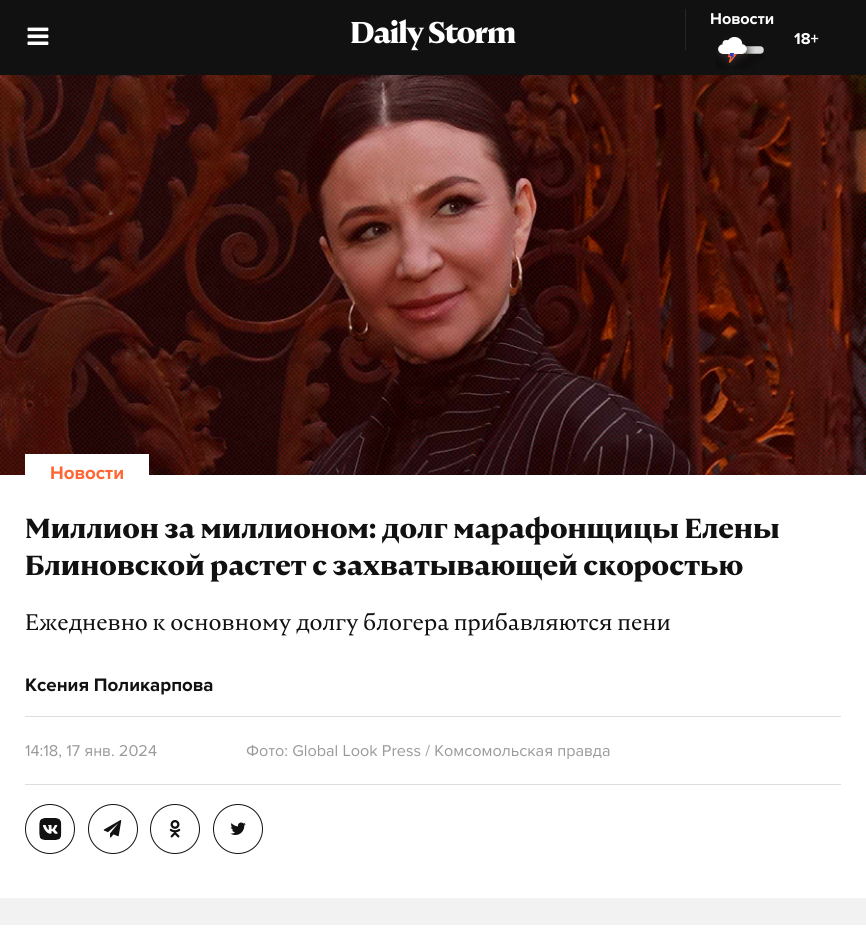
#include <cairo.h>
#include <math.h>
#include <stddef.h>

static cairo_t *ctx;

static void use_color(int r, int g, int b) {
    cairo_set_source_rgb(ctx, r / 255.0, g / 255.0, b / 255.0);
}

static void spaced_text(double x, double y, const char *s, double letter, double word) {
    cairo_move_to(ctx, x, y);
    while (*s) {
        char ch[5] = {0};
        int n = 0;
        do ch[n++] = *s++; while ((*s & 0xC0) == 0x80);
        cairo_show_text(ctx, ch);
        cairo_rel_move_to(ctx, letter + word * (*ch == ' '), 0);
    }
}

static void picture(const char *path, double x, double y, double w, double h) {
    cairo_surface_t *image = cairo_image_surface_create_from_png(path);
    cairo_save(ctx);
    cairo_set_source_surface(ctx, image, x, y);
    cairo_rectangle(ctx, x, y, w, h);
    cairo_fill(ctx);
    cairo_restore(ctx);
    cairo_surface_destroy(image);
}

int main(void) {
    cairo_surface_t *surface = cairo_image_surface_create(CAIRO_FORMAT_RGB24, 866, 929);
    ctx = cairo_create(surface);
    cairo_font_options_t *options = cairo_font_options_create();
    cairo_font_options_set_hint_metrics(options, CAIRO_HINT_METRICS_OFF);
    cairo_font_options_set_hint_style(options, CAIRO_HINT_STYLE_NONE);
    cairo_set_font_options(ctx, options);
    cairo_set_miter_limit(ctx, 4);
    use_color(242, 242, 242);
    cairo_paint(ctx);
    use_color(17, 17, 17);
    cairo_rectangle(ctx, 0, 0, 866, 75);
    cairo_fill(ctx);
    picture("img1.png", 27, 27, 22, 18);
    cairo_select_font_face(ctx, "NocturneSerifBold", CAIRO_FONT_SLANT_NORMAL, CAIRO_FONT_WEIGHT_NORMAL);
    cairo_set_font_size(ctx, 30);
    use_color(255, 255, 255);
    spaced_text(350, 43, "Daily Storm", -1.4, 0);
    use_color(39, 39, 39);
    cairo_rectangle(ctx, 685, 9, 1, 41);
    cairo_fill(ctx);
    cairo_select_font_face(ctx, "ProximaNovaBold", CAIRO_FONT_SLANT_NORMAL, CAIRO_FONT_WEIGHT_NORMAL);
    cairo_set_font_size(ctx, 16.25);
    use_color(255, 255, 255);
    cairo_move_to(ctx, 710, 24);
    cairo_show_text(ctx, "Новости");
    picture("img2.png", 716, 36, 48, 33);
    cairo_move_to(ctx, 794, 44);
    cairo_show_text(ctx, "18+");
    picture("img3.png", 0, 75, 866, 400);
    cairo_rectangle(ctx, 0, 475, 866, 423);
    cairo_fill(ctx);
    cairo_rectangle(ctx, 25, 454, 124, 21);
    cairo_fill(ctx);
    cairo_set_font_size(ctx, 18.75);
    use_color(255, 102, 51);
    cairo_move_to(ctx, 50, 479);
    cairo_show_text(ctx, "Новости");
    cairo_select_font_face(ctx, "NocturneSerifBold", CAIRO_FONT_SLANT_NORMAL, CAIRO_FONT_WEIGHT_NORMAL);
    cairo_set_font_size(ctx, 27.5);
    use_color(17, 17, 17);
    cairo_move_to(ctx, 25, 538);
    cairo_show_text(ctx, "Миллион за миллионом: долг марафонщицы Елены");
    cairo_move_to(ctx, 25, 575);
    cairo_show_text(ctx, "Блиновской растет с захватывающей скоростью");
    cairo_select_font_face(ctx, "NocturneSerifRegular", CAIRO_FONT_SLANT_NORMAL, CAIRO_FONT_WEIGHT_NORMAL);
    cairo_set_font_size(ctx, 22.5);
    cairo_move_to(ctx, 25, 630);
    cairo_show_text(ctx, "Ежедневно к основному долгу блогера прибавляются пени");
    cairo_select_font_face(ctx, "ProximaNovaBold", CAIRO_FONT_SLANT_NORMAL, CAIRO_FONT_WEIGHT_NORMAL);
    cairo_set_font_size(ctx, 18.75);
    cairo_move_to(ctx, 25, 691);
    cairo_show_text(ctx, "Ксения Поликарпова");
    use_color(221, 221, 221);
    cairo_rectangle(ctx, 25, 716, 816, 1);
    cairo_fill(ctx);
    cairo_select_font_face(ctx, "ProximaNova", CAIRO_FONT_SLANT_NORMAL, CAIRO_FONT_WEIGHT_NORMAL);
    cairo_set_font_size(ctx, 16.25);
    use_color(153, 153, 153);
    cairo_move_to(ctx, 25, 756);
    cairo_show_text(ctx, "14:18, 17 янв. 2024");
    cairo_move_to(ctx, 246, 756);
    cairo_show_text(ctx, "Фото: Global Look Press / Комсомольская правда");
    use_color(221, 221, 221);
    cairo_rectangle(ctx, 25, 784, 816, 1);
    cairo_fill(ctx);
    cairo_arc(ctx, 50, 829, 24.5, 0, 2 * M_PI);
    use_color(17, 17, 17);
    cairo_set_line_width(ctx, 1);
    cairo_stroke(ctx);
    picture("img4.png", 39, 818, 23, 22);
    cairo_arc(ctx, 113, 829, 24.5, 0, 2 * M_PI);
    cairo_stroke(ctx);
    picture("img5.png", 103, 820, 19, 18);
    cairo_arc(ctx, 175, 829, 24.5, 0, 2 * M_PI);
    cairo_stroke(ctx);
    picture("img6.png", 169, 820, 12, 18);
    cairo_arc(ctx, 238, 829, 24.5, 0, 2 * M_PI);
    cairo_stroke(ctx);
    picture("img7.png", 230, 822, 16, 13);
    use_color(255, 255, 255);
    cairo_rectangle(ctx, 0, 925, 866, 4);
    cairo_fill(ctx);
    cairo_surface_write_to_png(surface, "result.png");
    cairo_font_options_destroy(options);
    cairo_destroy(ctx);
    cairo_surface_destroy(surface);
    return 0;
}
